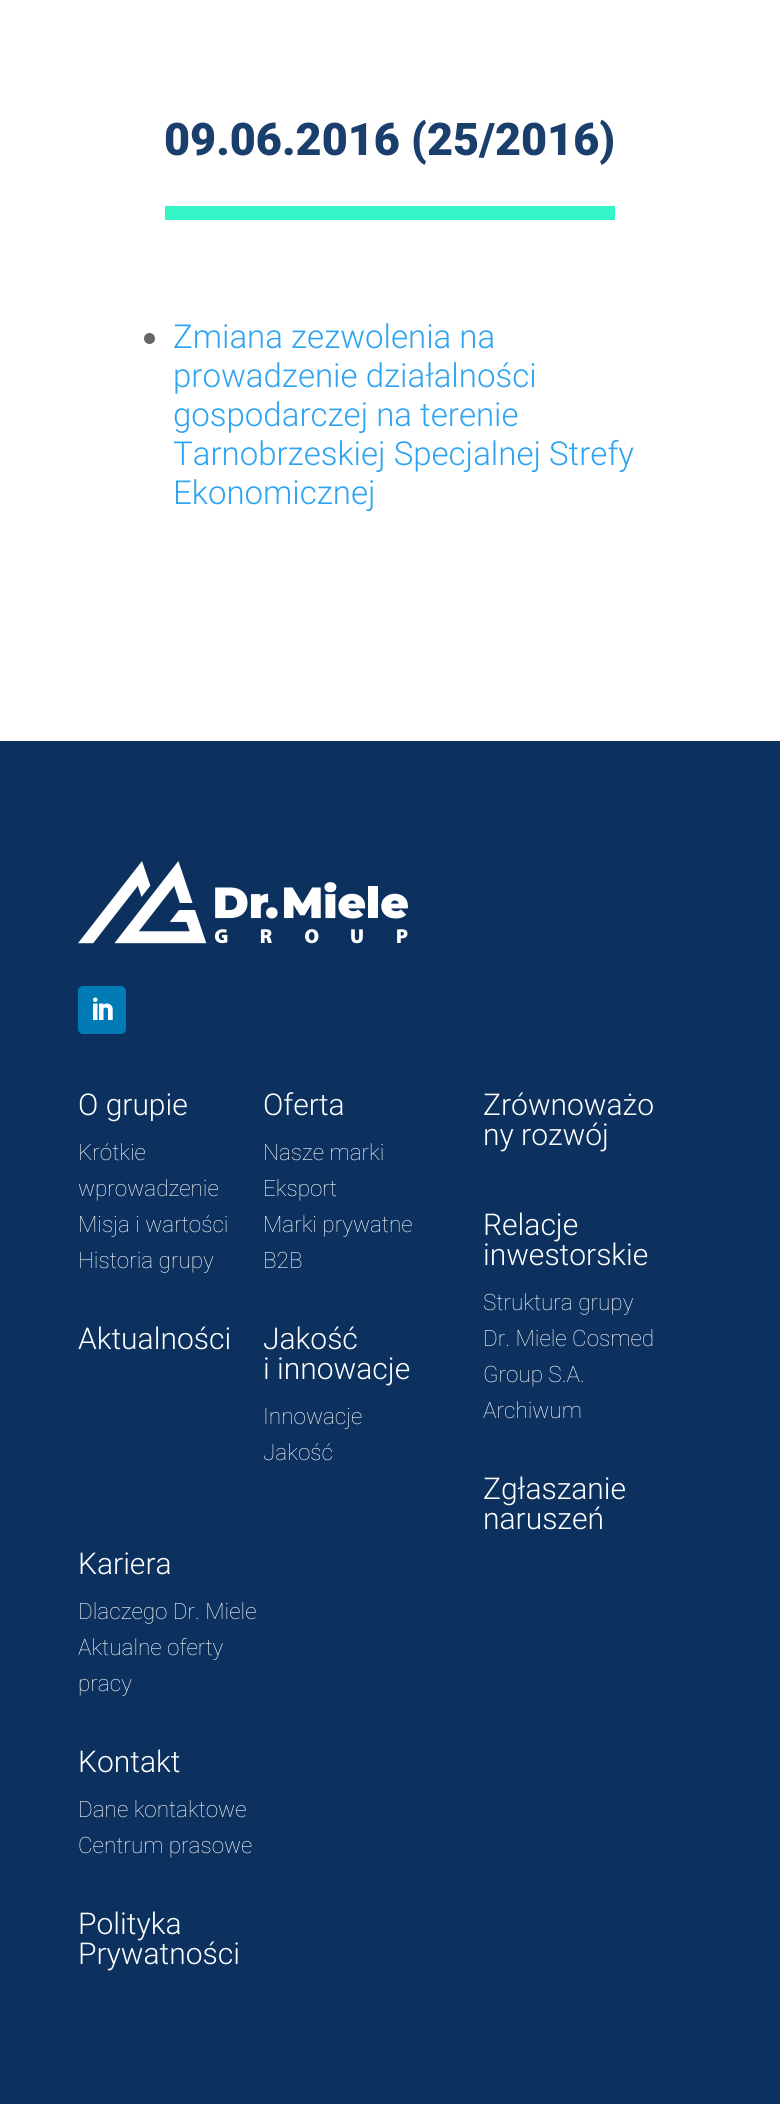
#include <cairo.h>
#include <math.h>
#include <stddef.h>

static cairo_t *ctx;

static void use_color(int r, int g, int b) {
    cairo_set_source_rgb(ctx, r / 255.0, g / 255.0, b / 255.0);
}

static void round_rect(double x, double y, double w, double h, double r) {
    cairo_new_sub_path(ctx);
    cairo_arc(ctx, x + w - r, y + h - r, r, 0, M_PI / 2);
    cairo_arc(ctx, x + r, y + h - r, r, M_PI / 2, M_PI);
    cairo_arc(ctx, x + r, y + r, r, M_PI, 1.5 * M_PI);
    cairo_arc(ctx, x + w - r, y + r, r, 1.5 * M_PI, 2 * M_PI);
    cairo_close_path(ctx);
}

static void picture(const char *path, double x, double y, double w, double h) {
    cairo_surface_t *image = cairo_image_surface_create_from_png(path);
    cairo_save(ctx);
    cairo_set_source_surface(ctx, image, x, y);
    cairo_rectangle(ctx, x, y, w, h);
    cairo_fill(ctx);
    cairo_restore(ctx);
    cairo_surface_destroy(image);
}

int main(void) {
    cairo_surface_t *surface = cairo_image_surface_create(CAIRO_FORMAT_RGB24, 780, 2104);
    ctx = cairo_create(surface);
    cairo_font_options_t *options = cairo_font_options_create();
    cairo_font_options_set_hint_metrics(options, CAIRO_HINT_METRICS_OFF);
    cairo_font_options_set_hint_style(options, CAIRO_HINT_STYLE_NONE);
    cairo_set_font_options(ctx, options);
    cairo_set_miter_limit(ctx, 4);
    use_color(255, 255, 255);
    cairo_paint(ctx);
    use_color(52, 245, 197);
    cairo_rectangle(ctx, 165, 206, 450, 14);
    cairo_fill(ctx);
    cairo_select_font_face(ctx, "Roboto Black", CAIRO_FONT_SLANT_NORMAL, CAIRO_FONT_WEIGHT_NORMAL);
    cairo_set_font_size(ctx, 45);
    use_color(26, 63, 109);
    cairo_move_to(ctx, 164, 155);
    cairo_show_text(ctx, "09.06.2016 (25/2016)");
    use_color(102, 102, 102);
    cairo_new_path(ctx);
    cairo_arc(ctx, 149.5, 338.5, 5.5, 0, 2 * M_PI);
    cairo_fill(ctx);
    cairo_select_font_face(ctx, "Roboto Light", CAIRO_FONT_SLANT_NORMAL, CAIRO_FONT_WEIGHT_NORMAL);
    cairo_set_font_size(ctx, 33);
    use_color(46, 163, 242);
    cairo_move_to(ctx, 173, 348);
    cairo_show_text(ctx, "Zmiana zezwolenia na");
    cairo_move_to(ctx, 173, 387);
    cairo_show_text(ctx, "prowadzenie działalności");
    cairo_move_to(ctx, 173, 426);
    cairo_show_text(ctx, "gospodarczej na terenie");
    cairo_move_to(ctx, 173, 465);
    cairo_show_text(ctx, "Tarnobrzeskiej Specjalnej Strefy");
    cairo_move_to(ctx, 173, 504);
    cairo_show_text(ctx, "Ekonomicznej");
    use_color(12, 49, 94);
    cairo_rectangle(ctx, 0, 741, 780, 1363);
    cairo_fill(ctx);
    picture("img1.png", 78, 861, 330, 83);
    use_color(0, 123, 182);
    round_rect(78, 986, 48, 48, 5);
    cairo_fill(ctx);
    picture("img2.png", 93, 997, 20, 23);
    cairo_set_font_size(ctx, 30);
    use_color(255, 255, 255);
    cairo_move_to(ctx, 78, 1115);
    cairo_show_text(ctx, "O grupie");
    cairo_select_font_face(ctx, "Roboto Thin", CAIRO_FONT_SLANT_NORMAL, CAIRO_FONT_WEIGHT_NORMAL);
    cairo_set_font_size(ctx, 22.5);
    cairo_move_to(ctx, 78, 1160);
    cairo_show_text(ctx, "Krótkie");
    cairo_move_to(ctx, 78, 1196);
    cairo_show_text(ctx, "wprowadzenie");
    cairo_move_to(ctx, 78, 1232);
    cairo_show_text(ctx, "Misja i wartości");
    cairo_move_to(ctx, 78, 1268);
    cairo_show_text(ctx, "Historia grupy");
    cairo_select_font_face(ctx, "Roboto Light", CAIRO_FONT_SLANT_NORMAL, CAIRO_FONT_WEIGHT_NORMAL);
    cairo_set_font_size(ctx, 30);
    cairo_move_to(ctx, 78, 1349);
    cairo_show_text(ctx, "Aktualności");
    cairo_move_to(ctx, 263, 1115);
    cairo_show_text(ctx, "Oferta");
    cairo_select_font_face(ctx, "Roboto Thin", CAIRO_FONT_SLANT_NORMAL, CAIRO_FONT_WEIGHT_NORMAL);
    cairo_set_font_size(ctx, 22.5);
    cairo_move_to(ctx, 263, 1160);
    cairo_show_text(ctx, "Nasze marki");
    cairo_move_to(ctx, 263, 1196);
    cairo_show_text(ctx, "Eksport");
    cairo_move_to(ctx, 263, 1232);
    cairo_show_text(ctx, "Marki prywatne");
    cairo_move_to(ctx, 263, 1268);
    cairo_show_text(ctx, "B2B");
    cairo_select_font_face(ctx, "Roboto Light", CAIRO_FONT_SLANT_NORMAL, CAIRO_FONT_WEIGHT_NORMAL);
    cairo_set_font_size(ctx, 30);
    cairo_move_to(ctx, 263, 1349);
    cairo_show_text(ctx, "Jakość");
    cairo_move_to(ctx, 263, 1379);
    cairo_show_text(ctx, "i innowacje");
    cairo_select_font_face(ctx, "Roboto Thin", CAIRO_FONT_SLANT_NORMAL, CAIRO_FONT_WEIGHT_NORMAL);
    cairo_set_font_size(ctx, 22.5);
    cairo_move_to(ctx, 263, 1424);
    cairo_show_text(ctx, "Innowacje");
    cairo_move_to(ctx, 263, 1460);
    cairo_show_text(ctx, "Jakość");
    cairo_select_font_face(ctx, "Roboto Light", CAIRO_FONT_SLANT_NORMAL, CAIRO_FONT_WEIGHT_NORMAL);
    cairo_set_font_size(ctx, 30);
    cairo_move_to(ctx, 483, 1115);
    cairo_show_text(ctx, "Zrównoważo");
    cairo_move_to(ctx, 483, 1145);
    cairo_show_text(ctx, "ny rozwój");
    cairo_move_to(ctx, 483, 1235);
    cairo_show_text(ctx, "Relacje");
    cairo_move_to(ctx, 483, 1265);
    cairo_show_text(ctx, "inwestorskie");
    cairo_select_font_face(ctx, "Roboto Thin", CAIRO_FONT_SLANT_NORMAL, CAIRO_FONT_WEIGHT_NORMAL);
    cairo_set_font_size(ctx, 22.5);
    cairo_move_to(ctx, 483, 1310);
    cairo_show_text(ctx, "Struktura grupy");
    cairo_move_to(ctx, 483, 1346);
    cairo_show_text(ctx, "Dr. Miele Cosmed");
    cairo_move_to(ctx, 483, 1382);
    cairo_show_text(ctx, "Group S.A.");
    cairo_move_to(ctx, 483, 1418);
    cairo_show_text(ctx, "Archiwum");
    cairo_select_font_face(ctx, "Roboto Light", CAIRO_FONT_SLANT_NORMAL, CAIRO_FONT_WEIGHT_NORMAL);
    cairo_set_font_size(ctx, 30);
    cairo_move_to(ctx, 483, 1499);
    cairo_show_text(ctx, "Zgłaszanie");
    cairo_move_to(ctx, 483, 1529);
    cairo_show_text(ctx, "naruszeń");
    cairo_move_to(ctx, 78, 1574);
    cairo_show_text(ctx, "Kariera");
    cairo_select_font_face(ctx, "Roboto Thin", CAIRO_FONT_SLANT_NORMAL, CAIRO_FONT_WEIGHT_NORMAL);
    cairo_set_font_size(ctx, 22.5);
    cairo_move_to(ctx, 78, 1619);
    cairo_show_text(ctx, "Dlaczego Dr. Miele");
    cairo_move_to(ctx, 78, 1655);
    cairo_show_text(ctx, "Aktualne oferty");
    cairo_move_to(ctx, 78, 1691);
    cairo_show_text(ctx, "pracy");
    cairo_select_font_face(ctx, "Roboto Light", CAIRO_FONT_SLANT_NORMAL, CAIRO_FONT_WEIGHT_NORMAL);
    cairo_set_font_size(ctx, 30);
    cairo_move_to(ctx, 78, 1772);
    cairo_show_text(ctx, "Kontakt");
    cairo_select_font_face(ctx, "Roboto Thin", CAIRO_FONT_SLANT_NORMAL, CAIRO_FONT_WEIGHT_NORMAL);
    cairo_set_font_size(ctx, 22.5);
    cairo_move_to(ctx, 78, 1817);
    cairo_show_text(ctx, "Dane kontaktowe");
    cairo_move_to(ctx, 78, 1853);
    cairo_show_text(ctx, "Centrum prasowe");
    cairo_select_font_face(ctx, "Roboto Light", CAIRO_FONT_SLANT_NORMAL, CAIRO_FONT_WEIGHT_NORMAL);
    cairo_set_font_size(ctx, 30);
    cairo_move_to(ctx, 78, 1934);
    cairo_show_text(ctx, "Polityka");
    cairo_move_to(ctx, 78, 1964);
    cairo_show_text(ctx, "Prywatności");
    cairo_surface_write_to_png(surface, "result.png");
    cairo_font_options_destroy(options);
    cairo_destroy(ctx);
    cairo_surface_destroy(surface);
    return 0;
}
